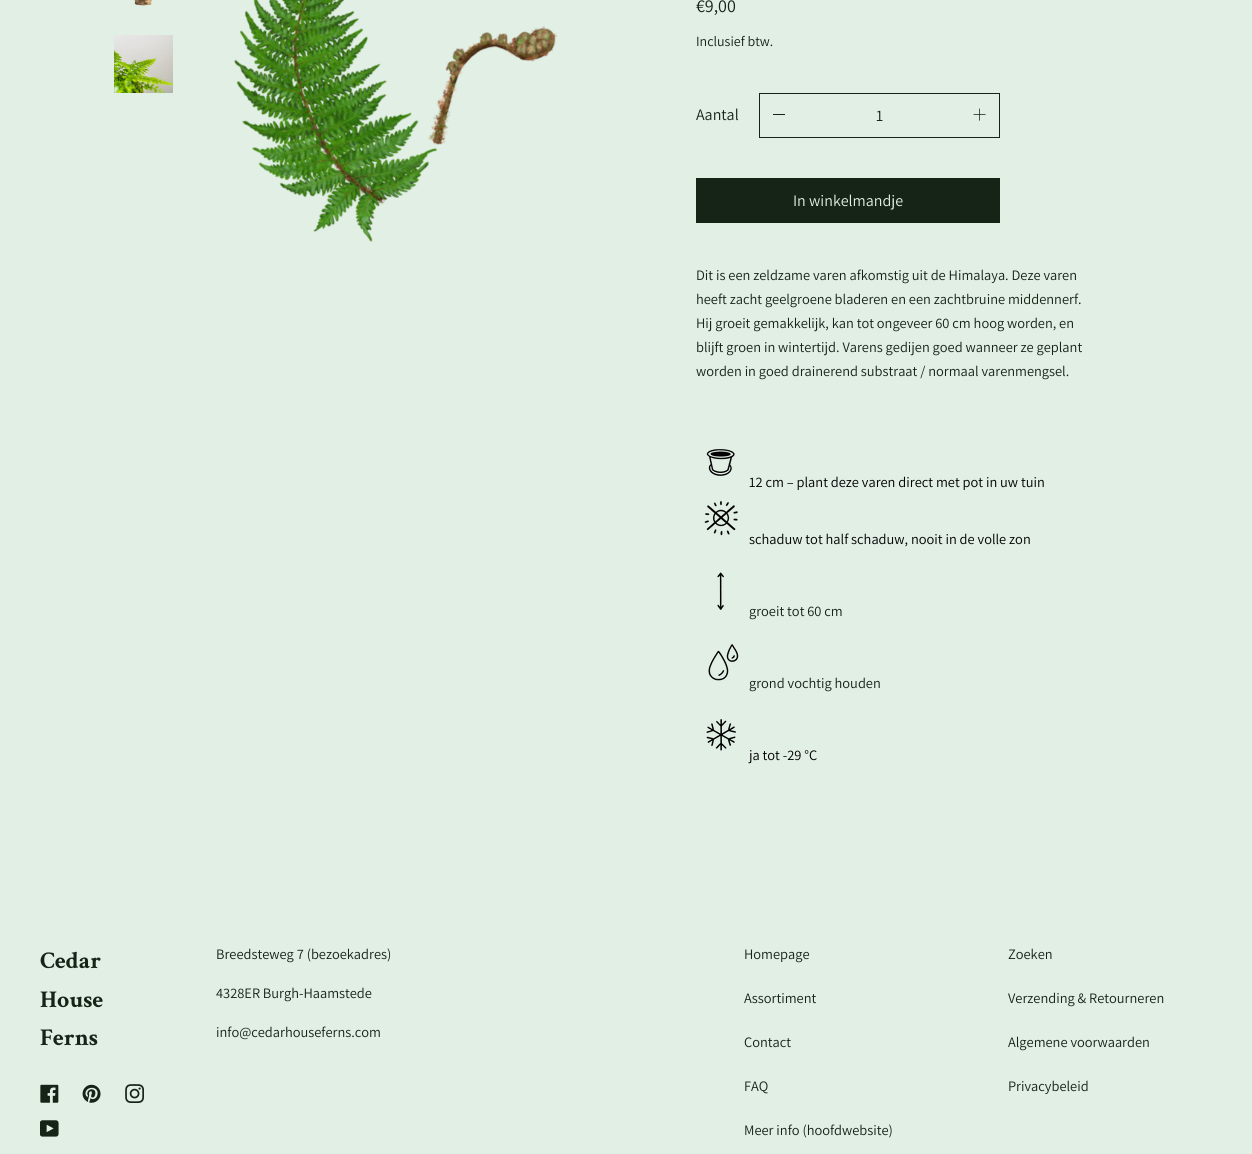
#include <cairo.h>
#include <math.h>
#include <stddef.h>

static cairo_t *ctx;

static void use_color(int r, int g, int b) {
    cairo_set_source_rgb(ctx, r / 255.0, g / 255.0, b / 255.0);
}

static void picture(const char *path, double x, double y, double w, double h) {
    cairo_surface_t *image = cairo_image_surface_create_from_png(path);
    cairo_save(ctx);
    cairo_set_source_surface(ctx, image, x, y);
    cairo_rectangle(ctx, x, y, w, h);
    cairo_fill(ctx);
    cairo_restore(ctx);
    cairo_surface_destroy(image);
}

int main(void) {
    cairo_surface_t *surface = cairo_image_surface_create(CAIRO_FORMAT_RGB24, 1252, 1154);
    ctx = cairo_create(surface);
    cairo_font_options_t *options = cairo_font_options_create();
    cairo_font_options_set_hint_metrics(options, CAIRO_HINT_METRICS_OFF);
    cairo_font_options_set_hint_style(options, CAIRO_HINT_STYLE_NONE);
    cairo_set_font_options(ctx, options);
    cairo_set_miter_limit(ctx, 4);
    use_color(225, 239, 229);
    cairo_paint(ctx);
    picture("img1.png", 134, 0, 18, 6);
    picture("img2.png", 114, 35, 59, 58);
    picture("img3.png", 234, 0, 324, 242);
    cairo_select_font_face(ctx, "Assistant", CAIRO_FONT_SLANT_NORMAL, CAIRO_FONT_WEIGHT_NORMAL);
    cairo_set_font_size(ctx, 18);
    use_color(22, 35, 23);
    cairo_move_to(ctx, 696, 12);
    cairo_show_text(ctx, "€9,00");
    cairo_set_font_size(ctx, 14);
    cairo_move_to(ctx, 696, 46);
    cairo_show_text(ctx, "Inclusief btw.");
    cairo_set_font_size(ctx, 16);
    cairo_move_to(ctx, 696, 120);
    cairo_show_text(ctx, "Aantal");
    cairo_rectangle(ctx, 759.5, 93.5, 240, 44);
    cairo_set_line_width(ctx, 1);
    cairo_stroke(ctx);
    cairo_rectangle(ctx, 773, 114, 12, 1);
    cairo_fill(ctx);
    cairo_move_to(ctx, 876, 121);
    cairo_show_text(ctx, "1");
    picture("img4.png", 973, 108, 13, 13);
    cairo_rectangle(ctx, 696, 178, 304, 45);
    cairo_fill(ctx);
    use_color(225, 239, 229);
    cairo_move_to(ctx, 793, 206);
    cairo_show_text(ctx, "In winkelmandje");
    cairo_set_font_size(ctx, 14.4);
    use_color(22, 35, 23);
    cairo_move_to(ctx, 696, 280);
    cairo_show_text(ctx, "Dit is een zeldzame varen afkomstig uit de Himalaya. Deze varen");
    cairo_move_to(ctx, 696, 304);
    cairo_show_text(ctx, "heeft zacht geelgroene bladeren en een zachtbruine middennerf.");
    cairo_move_to(ctx, 696, 328);
    cairo_show_text(ctx, "Hij groeit gemakkelijk, kan tot ongeveer 60 cm hoog worden, en");
    cairo_move_to(ctx, 696, 352);
    cairo_show_text(ctx, "blijft groen in wintertijd. Varens gedijen goed wanneer ze geplant");
    cairo_move_to(ctx, 696, 376);
    cairo_show_text(ctx, "worden in goed drainerend substraat / normaal varenmengsel.");
    picture("img5.png", 706, 449, 29, 27);
    use_color(0, 0, 0);
    cairo_move_to(ctx, 749, 487);
    cairo_show_text(ctx, "12 cm – plant deze varen direct met pot in uw tuin");
    picture("img6.png", 704, 501, 34, 35);
    cairo_move_to(ctx, 749, 544);
    cairo_show_text(ctx, "schaduw tot half schaduw, nooit in de volle zon");
    picture("img7.png", 717, 572, 7, 38);
    use_color(22, 35, 23);
    cairo_move_to(ctx, 749, 616);
    cairo_show_text(ctx, "groeit tot 60 cm");
    picture("img8.png", 708, 644, 31, 37);
    cairo_move_to(ctx, 749, 688);
    cairo_show_text(ctx, "grond vochtig houden");
    picture("img9.png", 706, 719, 30, 32);
    use_color(0, 0, 0);
    cairo_move_to(ctx, 749, 760);
    cairo_show_text(ctx, "ja tot -29 °C");
    cairo_select_font_face(ctx, "Crimson Text", CAIRO_FONT_SLANT_NORMAL, CAIRO_FONT_WEIGHT_BOLD);
    cairo_set_font_size(ctx, 24);
    use_color(22, 35, 23);
    cairo_move_to(ctx, 40, 968);
    cairo_show_text(ctx, "Cedar");
    cairo_move_to(ctx, 40, 1007);
    cairo_show_text(ctx, "House");
    cairo_move_to(ctx, 40, 1045);
    cairo_show_text(ctx, "Ferns");
    picture("img10.png", 40, 1084, 19, 19);
    picture("img11.png", 82, 1084, 19, 19);
    picture("img12.png", 125, 1084, 19, 19);
    picture("img13.png", 40, 1120, 19, 17);
    cairo_select_font_face(ctx, "Assistant", CAIRO_FONT_SLANT_NORMAL, CAIRO_FONT_WEIGHT_NORMAL);
    cairo_set_font_size(ctx, 14.4);
    cairo_move_to(ctx, 216, 959);
    cairo_show_text(ctx, "Breedsteweg 7 (bezoekadres)");
    cairo_move_to(ctx, 216, 998);
    cairo_show_text(ctx, "4328ER Burgh-Haamstede");
    cairo_move_to(ctx, 216, 1037);
    cairo_show_text(ctx, "info@cedarhouseferns.com");
    cairo_move_to(ctx, 744, 959);
    cairo_show_text(ctx, "Homepage");
    cairo_move_to(ctx, 744, 1003);
    cairo_show_text(ctx, "Assortiment");
    cairo_move_to(ctx, 744, 1047);
    cairo_show_text(ctx, "Contact");
    cairo_move_to(ctx, 744, 1091);
    cairo_show_text(ctx, "FAQ");
    cairo_move_to(ctx, 744, 1135);
    cairo_show_text(ctx, "Meer info (hoofdwebsite)");
    cairo_move_to(ctx, 1008, 959);
    cairo_show_text(ctx, "Zoeken");
    cairo_move_to(ctx, 1008, 1003);
    cairo_show_text(ctx, "Verzending & Retourneren");
    cairo_move_to(ctx, 1008, 1047);
    cairo_show_text(ctx, "Algemene voorwaarden");
    cairo_move_to(ctx, 1008, 1091);
    cairo_show_text(ctx, "Privacybeleid");
    cairo_surface_write_to_png(surface, "result.png");
    cairo_font_options_destroy(options);
    cairo_destroy(ctx);
    cairo_surface_destroy(surface);
    return 0;
}
